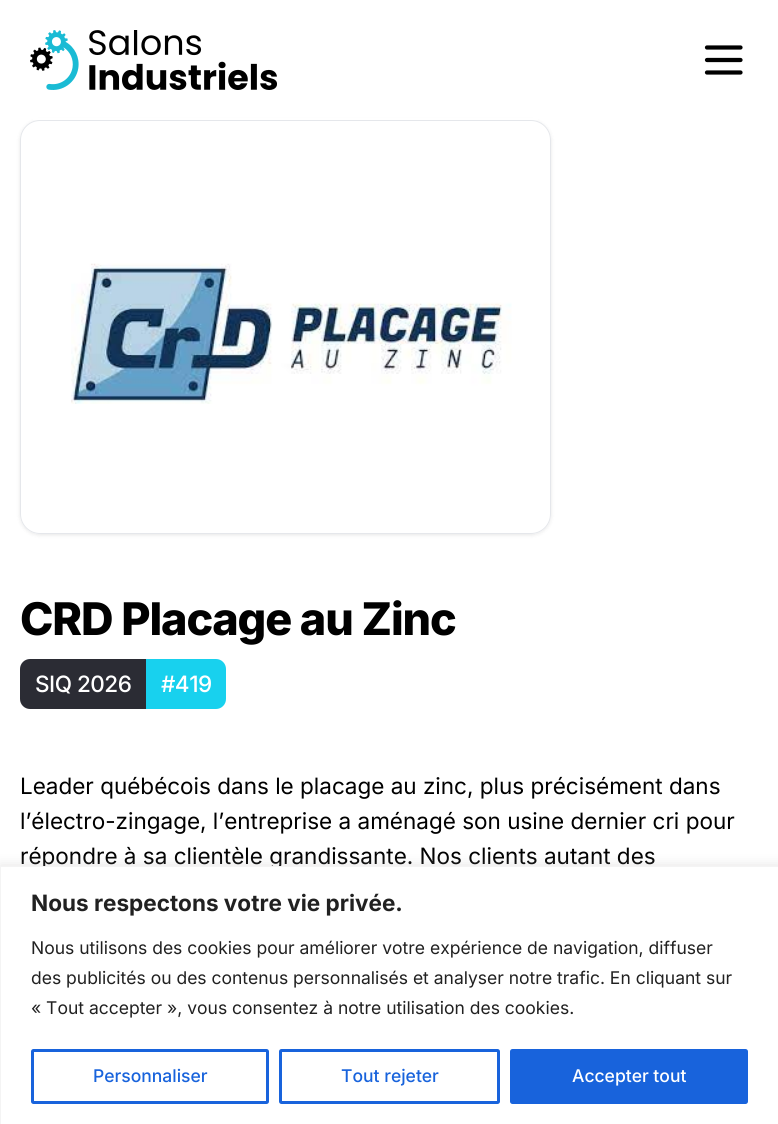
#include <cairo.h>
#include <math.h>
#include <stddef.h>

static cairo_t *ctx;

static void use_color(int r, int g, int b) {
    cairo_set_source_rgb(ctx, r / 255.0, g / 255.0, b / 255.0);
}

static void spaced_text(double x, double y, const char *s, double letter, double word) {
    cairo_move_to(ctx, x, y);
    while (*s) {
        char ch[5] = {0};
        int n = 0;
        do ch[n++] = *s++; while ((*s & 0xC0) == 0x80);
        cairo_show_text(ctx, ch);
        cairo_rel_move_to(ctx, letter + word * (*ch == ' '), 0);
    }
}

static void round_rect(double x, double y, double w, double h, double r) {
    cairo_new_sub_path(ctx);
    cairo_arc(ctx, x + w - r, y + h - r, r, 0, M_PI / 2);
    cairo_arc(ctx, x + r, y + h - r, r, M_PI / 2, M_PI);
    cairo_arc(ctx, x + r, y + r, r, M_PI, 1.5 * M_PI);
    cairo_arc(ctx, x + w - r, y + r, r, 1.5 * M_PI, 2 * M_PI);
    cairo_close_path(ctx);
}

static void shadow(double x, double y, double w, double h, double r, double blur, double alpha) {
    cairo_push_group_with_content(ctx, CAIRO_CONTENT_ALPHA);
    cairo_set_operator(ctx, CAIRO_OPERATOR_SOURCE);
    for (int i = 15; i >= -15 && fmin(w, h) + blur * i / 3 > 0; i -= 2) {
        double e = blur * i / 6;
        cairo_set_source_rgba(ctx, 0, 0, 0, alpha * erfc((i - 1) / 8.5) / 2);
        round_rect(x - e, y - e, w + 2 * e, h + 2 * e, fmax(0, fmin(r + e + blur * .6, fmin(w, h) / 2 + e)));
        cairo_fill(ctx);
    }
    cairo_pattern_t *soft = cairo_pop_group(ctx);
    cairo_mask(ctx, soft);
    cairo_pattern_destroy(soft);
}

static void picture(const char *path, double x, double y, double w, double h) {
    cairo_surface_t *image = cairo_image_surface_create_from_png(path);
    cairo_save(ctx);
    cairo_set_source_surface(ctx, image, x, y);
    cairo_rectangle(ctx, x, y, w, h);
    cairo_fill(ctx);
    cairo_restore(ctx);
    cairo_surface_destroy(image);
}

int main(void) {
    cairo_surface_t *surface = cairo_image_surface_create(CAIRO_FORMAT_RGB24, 778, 1124);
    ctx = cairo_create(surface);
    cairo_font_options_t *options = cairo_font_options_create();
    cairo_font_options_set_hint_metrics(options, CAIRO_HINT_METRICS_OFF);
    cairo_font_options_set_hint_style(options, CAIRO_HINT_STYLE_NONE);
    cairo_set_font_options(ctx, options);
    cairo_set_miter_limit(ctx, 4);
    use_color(255, 255, 255);
    cairo_paint(ctx);
    cairo_save(ctx);
    cairo_set_fill_rule(ctx, CAIRO_FILL_RULE_EVEN_ODD);
    cairo_new_path(ctx);
    cairo_move_to(ctx, 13, 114);
    cairo_line_to(ctx, 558, 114);
    cairo_line_to(ctx, 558, 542);
    cairo_line_to(ctx, 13, 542);
    cairo_close_path(ctx);
    cairo_move_to(ctx, 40, 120);
    cairo_line_to(ctx, 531, 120);
    cairo_curve_to(ctx, 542, 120, 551, 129, 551, 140);
    cairo_line_to(ctx, 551, 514);
    cairo_curve_to(ctx, 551, 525, 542, 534, 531, 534);
    cairo_line_to(ctx, 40, 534);
    cairo_curve_to(ctx, 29, 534, 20, 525, 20, 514);
    cairo_line_to(ctx, 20, 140);
    cairo_curve_to(ctx, 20, 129, 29, 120, 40, 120);
    cairo_close_path(ctx);
    cairo_clip(ctx);
    use_color(0, 0, 0);
    shadow(20, 121, 531, 414, 20, 2, 0.1);
    cairo_restore(ctx);
    use_color(255, 255, 255);
    cairo_rectangle(ctx, 33, 118, 505, 2);
    cairo_fill(ctx);
    picture("img1.png", 30, 30, 247, 60);
    cairo_new_path(ctx);
    cairo_move_to(ctx, 707, 60);
    cairo_line_to(ctx, 740.5, 60);
    cairo_move_to(ctx, 707, 47.5);
    cairo_line_to(ctx, 740.5, 47.5);
    cairo_move_to(ctx, 707, 72.5);
    cairo_line_to(ctx, 740.5, 72.5);
    use_color(0, 0, 0);
    cairo_set_line_width(ctx, 4.2);
    cairo_set_line_cap(ctx, CAIRO_LINE_CAP_ROUND);
    cairo_set_line_join(ctx, CAIRO_LINE_JOIN_ROUND);
    cairo_stroke(ctx);
    round_rect(20.5, 120.5, 530, 413, 19.5);
    use_color(229, 231, 235);
    cairo_set_line_width(ctx, 1);
    cairo_set_line_cap(ctx, CAIRO_LINE_CAP_BUTT);
    cairo_set_line_join(ctx, CAIRO_LINE_JOIN_MITER);
    cairo_stroke(ctx);
    picture("img2.png", 71, 263, 441, 141);
    cairo_select_font_face(ctx, "Inter ExtraBold", CAIRO_FONT_SLANT_NORMAL, CAIRO_FONT_WEIGHT_NORMAL);
    cairo_set_font_size(ctx, 45);
    use_color(0, 0, 0);
    spaced_text(20, 635, "CRD Placage au Zinc", -1.1, 0);
    use_color(43, 44, 52);
    cairo_new_path(ctx);
    cairo_move_to(ctx, 30, 659);
    cairo_line_to(ctx, 146, 659);
    cairo_line_to(ctx, 146, 709);
    cairo_line_to(ctx, 30, 709);
    cairo_curve_to(ctx, 24.5, 709, 20, 704.5, 20, 699);
    cairo_line_to(ctx, 20, 669);
    cairo_curve_to(ctx, 20, 663.5, 24.5, 659, 30, 659);
    cairo_close_path(ctx);
    cairo_fill(ctx);
    cairo_select_font_face(ctx, "Inter Medium", CAIRO_FONT_SLANT_NORMAL, CAIRO_FONT_WEIGHT_NORMAL);
    cairo_set_font_size(ctx, 22.5);
    use_color(255, 255, 255);
    spaced_text(35, 692, "SIQ 2026", -0.5, 0);
    use_color(24, 209, 238);
    cairo_new_path(ctx);
    cairo_move_to(ctx, 146, 659);
    cairo_line_to(ctx, 216, 659);
    cairo_curve_to(ctx, 221.5, 659, 226, 663.5, 226, 669);
    cairo_line_to(ctx, 226, 699);
    cairo_curve_to(ctx, 226, 704.5, 221.5, 709, 216, 709);
    cairo_line_to(ctx, 146, 709);
    cairo_close_path(ctx);
    cairo_fill(ctx);
    use_color(255, 255, 255);
    spaced_text(161, 692, "#419", -0.5, 0);
    cairo_select_font_face(ctx, "Inter", CAIRO_FONT_SLANT_NORMAL, CAIRO_FONT_WEIGHT_NORMAL);
    use_color(0, 0, 0);
    cairo_move_to(ctx, 20, 794);
    cairo_show_text(ctx, "Leader québécois dans le placage au zinc, plus précisément dans");
    cairo_move_to(ctx, 20, 829);
    cairo_show_text(ctx, "l’électro-zingage, l’entreprise a aménagé son usine dernier cri pour");
    cairo_move_to(ctx, 20, 864);
    cairo_show_text(ctx, "répondre à sa clientèle grandissante. Nos clients autant des");
    use_color(172, 171, 171);
    shadow(0, 865, 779, 259, 0, 6, 0.3);
    use_color(255, 255, 255);
    cairo_rectangle(ctx, 0.5, 866.5, 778, 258);
    cairo_fill_preserve(ctx);
    use_color(244, 244, 244);
    cairo_stroke(ctx);
    cairo_select_font_face(ctx, "Inter", CAIRO_FONT_SLANT_NORMAL, CAIRO_FONT_WEIGHT_BOLD);
    use_color(33, 33, 33);
    cairo_move_to(ctx, 31, 911);
    cairo_show_text(ctx, "Nous respectons votre vie privée.");
    cairo_select_font_face(ctx, "Inter", CAIRO_FONT_SLANT_NORMAL, CAIRO_FONT_WEIGHT_NORMAL);
    cairo_set_font_size(ctx, 17.5);
    cairo_move_to(ctx, 31, 954);
    cairo_show_text(ctx, "Nous utilisons des cookies pour améliorer votre expérience de navigation, diffuser");
    cairo_move_to(ctx, 31, 984);
    cairo_show_text(ctx, "des publicités ou des contenus personnalisés et analyser notre trafic. En cliquant sur");
    cairo_move_to(ctx, 31, 1014);
    cairo_show_text(ctx, "« Tout accepter », vous consentez à notre utilisation des cookies.");
    round_rect(32.5, 1050.5, 235, 52, 1);
    use_color(24, 99, 220);
    cairo_set_line_width(ctx, 3);
    cairo_stroke(ctx);
    cairo_select_font_face(ctx, "Inter Medium", CAIRO_FONT_SLANT_NORMAL, CAIRO_FONT_WEIGHT_NORMAL);
    cairo_move_to(ctx, 93, 1082);
    cairo_show_text(ctx, "Personnaliser");
    round_rect(280.5, 1050.5, 218, 52, 1);
    cairo_stroke(ctx);
    cairo_move_to(ctx, 341, 1082);
    cairo_show_text(ctx, "Tout rejeter");
    round_rect(511.5, 1050.5, 235, 52, 1);
    cairo_fill_preserve(ctx);
    cairo_stroke(ctx);
    use_color(255, 255, 255);
    cairo_move_to(ctx, 572, 1082);
    cairo_show_text(ctx, "Accepter tout");
    cairo_surface_write_to_png(surface, "result.png");
    cairo_font_options_destroy(options);
    cairo_destroy(ctx);
    cairo_surface_destroy(surface);
    return 0;
}
